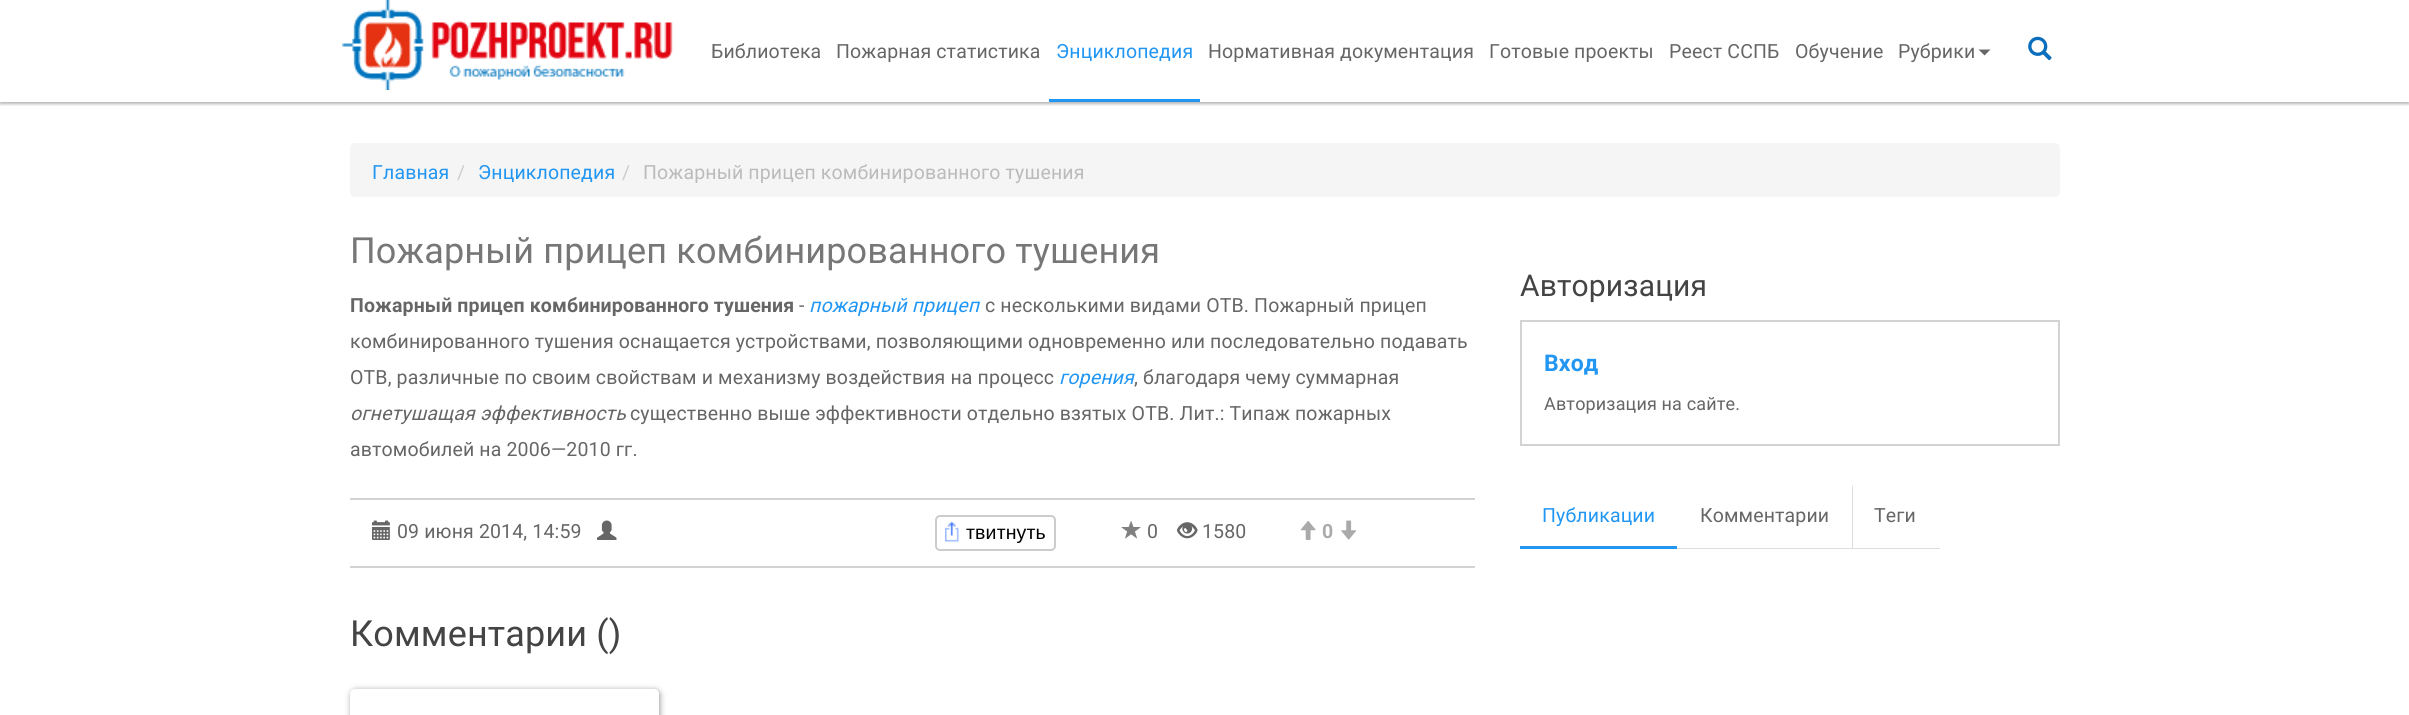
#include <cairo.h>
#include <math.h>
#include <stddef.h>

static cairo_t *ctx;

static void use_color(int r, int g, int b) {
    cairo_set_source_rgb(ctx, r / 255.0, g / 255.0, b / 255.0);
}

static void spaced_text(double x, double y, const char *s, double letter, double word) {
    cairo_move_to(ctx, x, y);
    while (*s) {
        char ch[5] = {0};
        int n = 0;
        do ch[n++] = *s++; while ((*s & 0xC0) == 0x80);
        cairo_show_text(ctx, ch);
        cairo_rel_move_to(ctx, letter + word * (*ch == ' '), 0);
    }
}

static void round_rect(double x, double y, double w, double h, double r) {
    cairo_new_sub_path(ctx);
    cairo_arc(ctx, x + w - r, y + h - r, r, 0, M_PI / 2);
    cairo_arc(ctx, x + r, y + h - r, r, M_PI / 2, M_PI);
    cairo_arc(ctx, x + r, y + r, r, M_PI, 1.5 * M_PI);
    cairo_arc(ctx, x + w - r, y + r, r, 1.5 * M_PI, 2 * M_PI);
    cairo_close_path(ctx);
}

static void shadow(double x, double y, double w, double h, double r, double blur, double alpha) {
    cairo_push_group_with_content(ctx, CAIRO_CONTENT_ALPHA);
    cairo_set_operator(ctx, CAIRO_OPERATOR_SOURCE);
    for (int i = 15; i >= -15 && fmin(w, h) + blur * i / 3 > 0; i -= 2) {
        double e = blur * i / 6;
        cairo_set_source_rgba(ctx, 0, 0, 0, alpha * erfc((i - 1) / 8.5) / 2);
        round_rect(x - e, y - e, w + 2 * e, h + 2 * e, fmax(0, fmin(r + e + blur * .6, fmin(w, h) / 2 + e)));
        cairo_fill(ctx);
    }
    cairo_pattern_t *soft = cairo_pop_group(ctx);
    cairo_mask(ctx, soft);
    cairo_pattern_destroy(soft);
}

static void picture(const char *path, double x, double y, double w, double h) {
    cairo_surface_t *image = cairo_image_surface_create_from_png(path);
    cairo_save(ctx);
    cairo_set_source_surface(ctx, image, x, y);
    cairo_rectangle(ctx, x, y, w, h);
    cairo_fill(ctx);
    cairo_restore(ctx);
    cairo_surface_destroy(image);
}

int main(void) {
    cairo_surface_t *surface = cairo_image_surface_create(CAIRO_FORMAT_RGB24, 2409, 715);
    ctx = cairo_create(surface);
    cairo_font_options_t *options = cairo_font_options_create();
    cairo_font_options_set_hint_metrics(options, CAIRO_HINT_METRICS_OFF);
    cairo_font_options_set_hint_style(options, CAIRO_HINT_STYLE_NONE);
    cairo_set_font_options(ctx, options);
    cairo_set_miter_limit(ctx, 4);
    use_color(255, 255, 255);
    cairo_paint(ctx);
    cairo_save(ctx);
    cairo_rectangle(ctx, 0, 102, 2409, 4);
    cairo_clip(ctx);
    use_color(0, 0, 0);
    shadow(0, 2, 2409, 102, 0, 1.5, 0.3);
    cairo_restore(ctx);
    picture("img1.png", 342, 0, 331, 90);
    cairo_select_font_face(ctx, "Roboto", CAIRO_FONT_SLANT_NORMAL, CAIRO_FONT_WEIGHT_NORMAL);
    cairo_set_font_size(ctx, 19.5);
    use_color(102, 102, 102);
    spaced_text(711, 58, "Библиотека", 0.15, 0);
    spaced_text(836, 58, "Пожарная статистика", 0.15, 0);
    use_color(33, 150, 243);
    cairo_rectangle(ctx, 1049, 99, 151, 3);
    cairo_fill(ctx);
    spaced_text(1056, 58, "Энциклопедия", 0.15, 0);
    use_color(102, 102, 102);
    spaced_text(1208, 58, "Нормативная документация", 0.15, 0);
    spaced_text(1489, 58, "Готовые проекты", 0.15, 0);
    spaced_text(1669, 58, "Реест ССПБ", 0.15, 0);
    spaced_text(1795, 58, "Обучение", 0.15, 0);
    spaced_text(1898, 58, "Рубрики", 0.15, 0);
    cairo_new_path(ctx);
    cairo_move_to(ctx, 1978.5, 49.5);
    cairo_line_to(ctx, 1990.5, 49.5);
    cairo_line_to(ctx, 1984.5, 55.5);
    cairo_close_path(ctx);
    cairo_fill(ctx);
    picture("img2.png", 2028, 36, 24, 25);
    use_color(245, 245, 245);
    round_rect(350, 143, 1710, 54, 5);
    cairo_fill(ctx);
    use_color(33, 150, 243);
    spaced_text(372, 179, "Главная", 0.15, 0);
    use_color(204, 204, 204);
    spaced_text(457, 179, "/", 0.15, 0);
    use_color(33, 150, 243);
    spaced_text(478, 179, "Энциклопедия", 0.15, 0);
    use_color(204, 204, 204);
    spaced_text(622, 179, "/", 0.15, 0);
    use_color(187, 187, 187);
    spaced_text(643, 179, "Пожарный прицеп комбинированного тушения", 0.15, 0);
    cairo_set_font_size(ctx, 36);
    use_color(119, 119, 119);
    spaced_text(350, 263, "Пожарный прицеп комбинированного тушения", 0.15, 0);
    cairo_select_font_face(ctx, "Roboto", CAIRO_FONT_SLANT_NORMAL, CAIRO_FONT_WEIGHT_BOLD);
    cairo_set_font_size(ctx, 19.5);
    use_color(102, 102, 102);
    spaced_text(350, 312, "Пожарный прицеп комбинированного тушения", 0.15, 0);
    cairo_select_font_face(ctx, "Roboto", CAIRO_FONT_SLANT_NORMAL, CAIRO_FONT_WEIGHT_NORMAL);
    spaced_text(799, 312, "-", 0.15, 0);
    cairo_select_font_face(ctx, "Roboto", CAIRO_FONT_SLANT_ITALIC, CAIRO_FONT_WEIGHT_NORMAL);
    use_color(33, 150, 243);
    spaced_text(809, 312, "пожарный прицеп", 0.15, 0);
    cairo_select_font_face(ctx, "Roboto", CAIRO_FONT_SLANT_NORMAL, CAIRO_FONT_WEIGHT_NORMAL);
    use_color(102, 102, 102);
    spaced_text(985, 312, "с несколькими видами ОТВ. Пожарный прицеп", 0.15, 0);
    spaced_text(350, 348, "комбинированного тушения оснащается устройствами, позволяющими одновременно или последовательно подавать", 0.15, 0);
    spaced_text(350, 384, "ОТВ, различные по своим свойствам и механизму воздействия на процесс", 0.15, 0);
    cairo_select_font_face(ctx, "Roboto", CAIRO_FONT_SLANT_ITALIC, CAIRO_FONT_WEIGHT_NORMAL);
    use_color(33, 150, 243);
    spaced_text(1059, 384, "горения", 0.15, 0);
    cairo_select_font_face(ctx, "Roboto", CAIRO_FONT_SLANT_NORMAL, CAIRO_FONT_WEIGHT_NORMAL);
    use_color(102, 102, 102);
    spaced_text(1134, 384, ", благодаря чему суммарная", 0.15, 0);
    cairo_select_font_face(ctx, "Roboto", CAIRO_FONT_SLANT_ITALIC, CAIRO_FONT_WEIGHT_NORMAL);
    spaced_text(350, 420, "огнетушащая эффективность", 0.15, 0);
    cairo_select_font_face(ctx, "Roboto", CAIRO_FONT_SLANT_NORMAL, CAIRO_FONT_WEIGHT_NORMAL);
    spaced_text(630, 420, "существенно выше эффективности отдельно взятых ОТВ. Лит.: Типаж пожарных", 0.15, 0);
    spaced_text(350, 456, "автомобилей на 2006—2010 гг.", 0.15, 0);
    use_color(211, 211, 211);
    cairo_rectangle(ctx, 350, 498, 1125, 2);
    cairo_fill(ctx);
    cairo_rectangle(ctx, 350, 566, 1125, 2);
    cairo_fill(ctx);
    picture("img3.png", 372, 520, 18, 20);
    use_color(102, 102, 102);
    spaced_text(397, 538, "09 июня 2014, 14:59", 0.15, 0);
    picture("img4.png", 597, 520, 20, 20);
    round_rect(936, 516, 119, 34, 4);
    use_color(204, 204, 204);
    cairo_stroke(ctx);
    picture("img5.png", 945, 522, 14, 20);
    cairo_select_font_face(ctx, "Liberation Sans", CAIRO_FONT_SLANT_NORMAL, CAIRO_FONT_WEIGHT_NORMAL);
    use_color(0, 0, 0);
    spaced_text(966, 539, "твитнуть", 0.15, 0);
    picture("img6.png", 1121, 521, 20, 18);
    cairo_select_font_face(ctx, "Roboto", CAIRO_FONT_SLANT_NORMAL, CAIRO_FONT_WEIGHT_NORMAL);
    use_color(102, 102, 102);
    spaced_text(1147, 538, "0", 0.15, 0);
    picture("img7.png", 1176, 522, 22, 17);
    spaced_text(1202, 538, "1580", 0.15, 0);
    picture("img8.png", 1300, 521, 16, 19);
    cairo_select_font_face(ctx, "Roboto", CAIRO_FONT_SLANT_NORMAL, CAIRO_FONT_WEIGHT_BOLD);
    use_color(170, 170, 170);
    spaced_text(1322, 538, "0", 0.15, 0);
    picture("img9.png", 1341, 520, 16, 20);
    cairo_select_font_face(ctx, "Roboto", CAIRO_FONT_SLANT_NORMAL, CAIRO_FONT_WEIGHT_NORMAL);
    cairo_set_font_size(ctx, 36);
    use_color(68, 68, 68);
    spaced_text(350, 646, "Комментарии ()", 0.15, 0);
    use_color(0, 0, 0);
    shadow(351, 690, 309, 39, 5, 3, 0.4);
    use_color(255, 255, 255);
    round_rect(350, 689, 309, 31, 5);
    cairo_fill(ctx);
    cairo_set_font_size(ctx, 30);
    use_color(68, 68, 68);
    spaced_text(1520, 296, "Авторизация", 0.15, 0);
    cairo_rectangle(ctx, 1521, 321, 538, 124);
    use_color(211, 211, 211);
    cairo_stroke(ctx);
    cairo_select_font_face(ctx, "Roboto", CAIRO_FONT_SLANT_NORMAL, CAIRO_FONT_WEIGHT_BOLD);
    cairo_set_font_size(ctx, 23);
    use_color(33, 150, 243);
    spaced_text(1544, 371, "Вход", 0.15, 0);
    cairo_select_font_face(ctx, "Roboto", CAIRO_FONT_SLANT_NORMAL, CAIRO_FONT_WEIGHT_NORMAL);
    cairo_set_font_size(ctx, 18);
    use_color(102, 102, 102);
    spaced_text(1544, 410, "Авторизация на сайте.", 0.15, 0);
    use_color(33, 150, 243);
    cairo_rectangle(ctx, 1520, 546, 157, 3);
    cairo_fill(ctx);
    cairo_set_font_size(ctx, 19.5);
    spaced_text(1542, 522, "Публикации", 0.15, 0);
    use_color(221, 221, 221);
    cairo_new_path(ctx);
    cairo_move_to(ctx, 1677, 548);
    cairo_line_to(ctx, 1677, 549);
    cairo_line_to(ctx, 1853, 549);
    cairo_line_to(ctx, 1853, 488);
    cairo_curve_to(ctx, 1853, 487, 1853, 486, 1852, 485);
    cairo_line_to(ctx, 1852, 548);
    cairo_close_path(ctx);
    cairo_fill(ctx);
    use_color(102, 102, 102);
    spaced_text(1700, 522, "Комментарии", 0.15, 0);
    use_color(221, 221, 221);
    cairo_rectangle(ctx, 1853, 548, 87, 1);
    cairo_fill(ctx);
    use_color(102, 102, 102);
    spaced_text(1874, 522, "Теги", 0.15, 0);
    cairo_surface_write_to_png(surface, "result.png");
    cairo_font_options_destroy(options);
    cairo_destroy(ctx);
    cairo_surface_destroy(surface);
    return 0;
}
